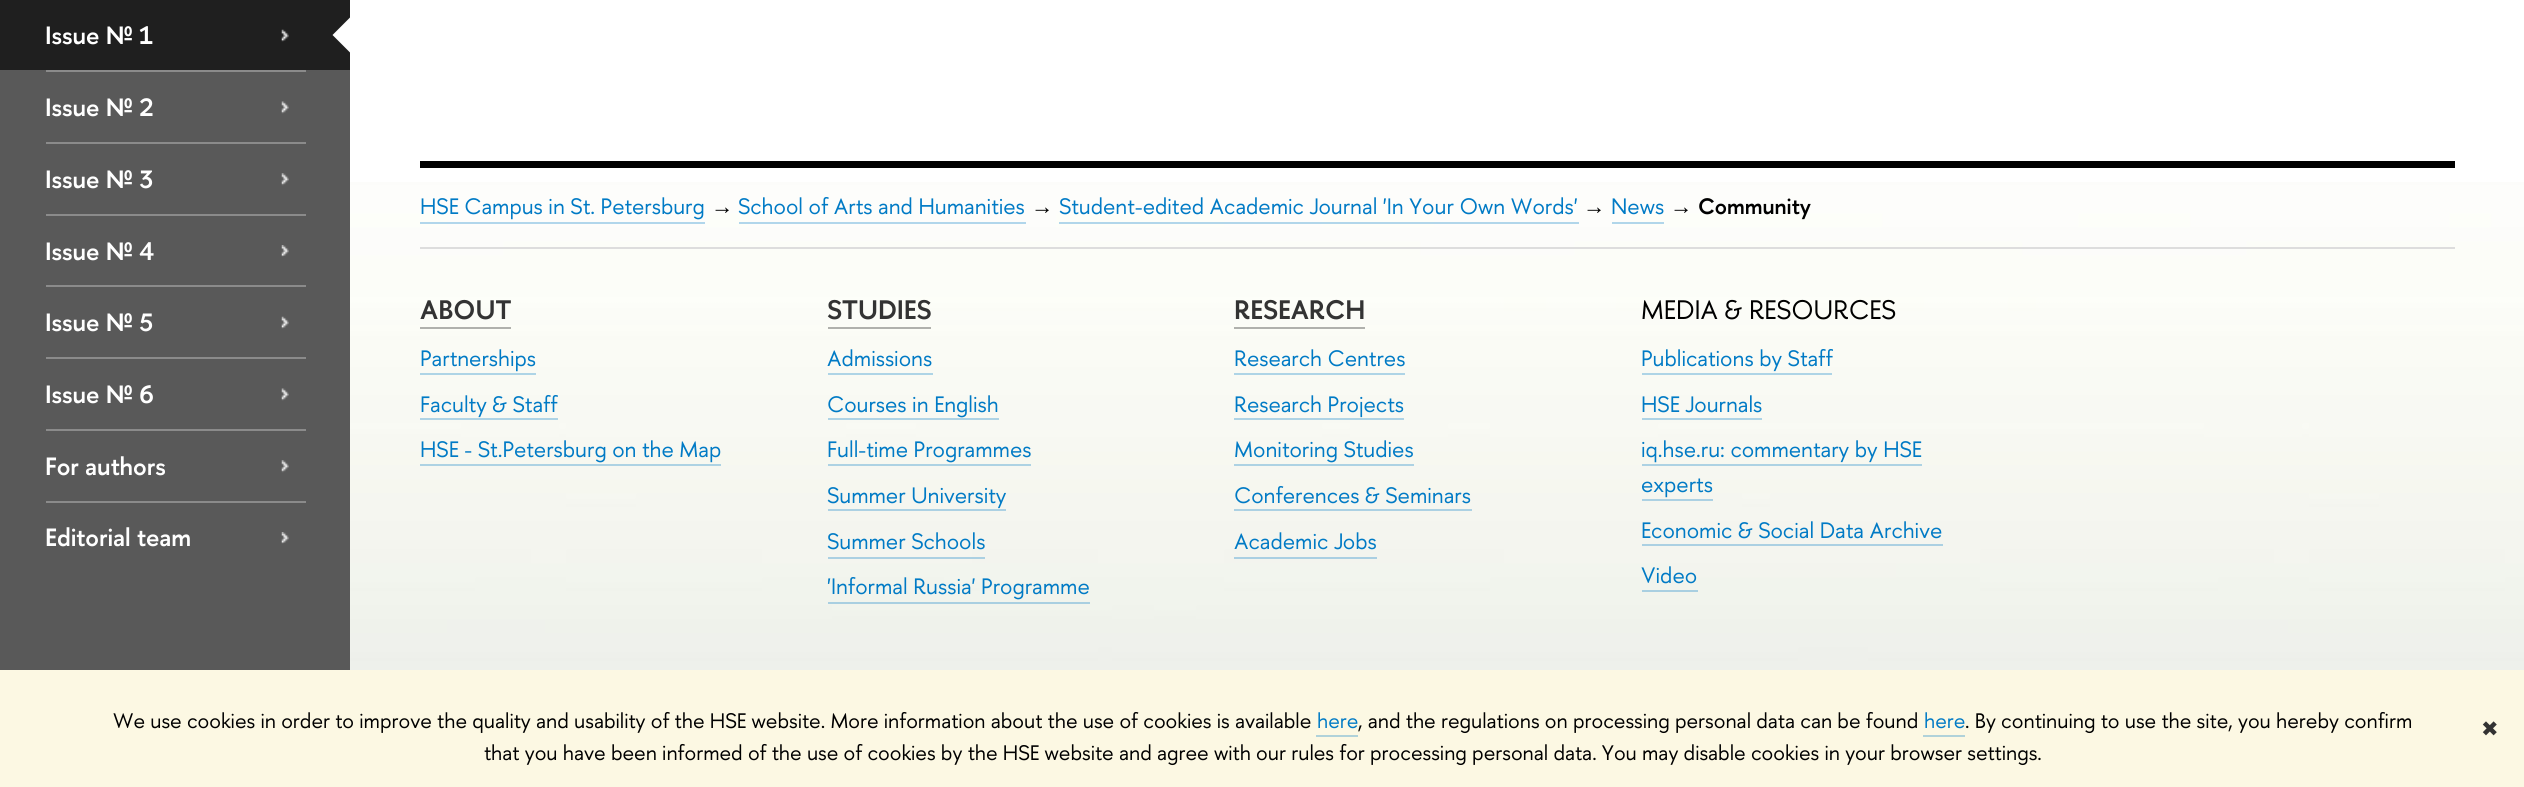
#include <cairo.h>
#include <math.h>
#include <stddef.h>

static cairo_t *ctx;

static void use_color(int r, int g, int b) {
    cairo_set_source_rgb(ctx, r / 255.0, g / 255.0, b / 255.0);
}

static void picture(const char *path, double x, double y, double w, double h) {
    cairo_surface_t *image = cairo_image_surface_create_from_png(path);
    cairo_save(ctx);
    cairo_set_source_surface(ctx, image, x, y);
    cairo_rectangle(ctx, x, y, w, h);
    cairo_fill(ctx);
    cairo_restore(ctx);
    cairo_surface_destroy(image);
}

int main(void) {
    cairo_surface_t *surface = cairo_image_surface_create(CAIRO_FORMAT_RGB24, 2524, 787);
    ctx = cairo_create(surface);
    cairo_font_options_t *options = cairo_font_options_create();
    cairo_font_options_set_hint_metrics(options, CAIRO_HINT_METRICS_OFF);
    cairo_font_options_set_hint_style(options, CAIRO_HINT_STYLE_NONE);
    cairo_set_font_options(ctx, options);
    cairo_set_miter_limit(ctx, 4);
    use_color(255, 255, 255);
    cairo_paint(ctx);
    use_color(31, 31, 31);
    cairo_rectangle(ctx, 0, 0, 350, 70);
    cairo_fill(ctx);
    cairo_select_font_face(ctx, "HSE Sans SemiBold", CAIRO_FONT_SLANT_NORMAL, CAIRO_FONT_WEIGHT_NORMAL);
    cairo_set_font_size(ctx, 25);
    use_color(255, 255, 255);
    cairo_move_to(ctx, 45, 44);
    cairo_show_text(ctx, "Issue № 1");
    picture("img1.png", 281, 29, 8, 13);
    cairo_new_path(ctx);
    cairo_move_to(ctx, 350, 17.5);
    cairo_line_to(ctx, 350, 52.5);
    cairo_line_to(ctx, 332.5, 35);
    cairo_close_path(ctx);
    cairo_fill(ctx);
    use_color(89, 89, 89);
    cairo_rectangle(ctx, 0, 70, 350, 600);
    cairo_fill(ctx);
    use_color(139, 139, 139);
    cairo_rectangle(ctx, 46, 70, 260, 2);
    cairo_fill(ctx);
    use_color(255, 255, 255);
    cairo_move_to(ctx, 45, 116);
    cairo_show_text(ctx, "Issue № 2");
    picture("img2.png", 281, 101, 8, 13);
    use_color(139, 139, 139);
    cairo_rectangle(ctx, 46, 142, 260, 2);
    cairo_fill(ctx);
    use_color(255, 255, 255);
    cairo_move_to(ctx, 45, 188);
    cairo_show_text(ctx, "Issue № 3");
    picture("img3.png", 281, 173, 8, 13);
    use_color(139, 139, 139);
    cairo_rectangle(ctx, 46, 214, 260, 2);
    cairo_fill(ctx);
    use_color(255, 255, 255);
    cairo_move_to(ctx, 45, 260);
    cairo_show_text(ctx, "Issue № 4");
    picture("img4.png", 281, 245, 8, 12);
    use_color(139, 139, 139);
    cairo_rectangle(ctx, 46, 285, 260, 2);
    cairo_fill(ctx);
    use_color(255, 255, 255);
    cairo_move_to(ctx, 45, 331);
    cairo_show_text(ctx, "Issue № 5");
    picture("img5.png", 281, 316, 8, 13);
    use_color(139, 139, 139);
    cairo_rectangle(ctx, 46, 357, 260, 2);
    cairo_fill(ctx);
    use_color(255, 255, 255);
    cairo_move_to(ctx, 45, 403);
    cairo_show_text(ctx, "Issue № 6");
    picture("img2.png", 281, 388, 8, 13);
    use_color(139, 139, 139);
    cairo_rectangle(ctx, 46, 429, 260, 2);
    cairo_fill(ctx);
    use_color(255, 255, 255);
    cairo_move_to(ctx, 45, 475);
    cairo_show_text(ctx, "For authors");
    picture("img3.png", 281, 460, 8, 13);
    use_color(139, 139, 139);
    cairo_rectangle(ctx, 46, 501, 260, 2);
    cairo_fill(ctx);
    use_color(255, 255, 255);
    cairo_move_to(ctx, 45, 546);
    cairo_show_text(ctx, "Editorial team");
    picture("img6.png", 281, 532, 8, 12);
    picture("img7.png", 350, 182, 2174, 488);
    use_color(0, 0, 0);
    cairo_rectangle(ctx, 420, 161, 2035, 7);
    cairo_fill(ctx);
    use_color(221, 221, 221);
    cairo_rectangle(ctx, 420, 247, 2035, 2);
    cairo_fill(ctx);
    cairo_select_font_face(ctx, "HSE Sans", CAIRO_FONT_SLANT_NORMAL, CAIRO_FONT_WEIGHT_NORMAL);
    cairo_set_font_size(ctx, 22.3);
    use_color(0, 122, 197);
    cairo_move_to(ctx, 420, 214);
    cairo_show_text(ctx, "HSE Campus in St. Petersburg");
    use_color(177, 214, 235);
    cairo_rectangle(ctx, 420, 222, 285, 2);
    cairo_fill(ctx);
    cairo_select_font_face(ctx, "Liberation Sans", CAIRO_FONT_SLANT_NORMAL, CAIRO_FONT_WEIGHT_NORMAL);
    use_color(0, 0, 0);
    cairo_move_to(ctx, 711, 214);
    cairo_show_text(ctx, "→");
    cairo_select_font_face(ctx, "HSE Sans", CAIRO_FONT_SLANT_NORMAL, CAIRO_FONT_WEIGHT_NORMAL);
    use_color(0, 122, 197);
    cairo_move_to(ctx, 738, 214);
    cairo_show_text(ctx, "School of Arts and Humanities");
    use_color(177, 214, 235);
    cairo_rectangle(ctx, 739, 222, 287, 2);
    cairo_fill(ctx);
    cairo_select_font_face(ctx, "Liberation Sans", CAIRO_FONT_SLANT_NORMAL, CAIRO_FONT_WEIGHT_NORMAL);
    use_color(0, 0, 0);
    cairo_move_to(ctx, 1031, 214);
    cairo_show_text(ctx, "→");
    cairo_select_font_face(ctx, "HSE Sans", CAIRO_FONT_SLANT_NORMAL, CAIRO_FONT_WEIGHT_NORMAL);
    use_color(0, 122, 197);
    cairo_move_to(ctx, 1059, 214);
    cairo_show_text(ctx, "Student-edited Academic Journal 'In Your Own Words'");
    use_color(177, 214, 234);
    cairo_rectangle(ctx, 1059, 222, 520, 2);
    cairo_fill(ctx);
    cairo_select_font_face(ctx, "Liberation Sans", CAIRO_FONT_SLANT_NORMAL, CAIRO_FONT_WEIGHT_NORMAL);
    use_color(0, 0, 0);
    cairo_move_to(ctx, 1583, 214);
    cairo_show_text(ctx, "→");
    cairo_select_font_face(ctx, "HSE Sans", CAIRO_FONT_SLANT_NORMAL, CAIRO_FONT_WEIGHT_NORMAL);
    use_color(0, 122, 197);
    cairo_move_to(ctx, 1611, 214);
    cairo_show_text(ctx, "News");
    use_color(177, 214, 234);
    cairo_rectangle(ctx, 1612, 222, 52, 2);
    cairo_fill(ctx);
    cairo_select_font_face(ctx, "Liberation Sans", CAIRO_FONT_SLANT_NORMAL, CAIRO_FONT_WEIGHT_NORMAL);
    use_color(0, 0, 0);
    cairo_move_to(ctx, 1670, 214);
    cairo_show_text(ctx, "→");
    cairo_select_font_face(ctx, "HSE Sans SemiBold", CAIRO_FONT_SLANT_NORMAL, CAIRO_FONT_WEIGHT_NORMAL);
    cairo_move_to(ctx, 1698, 214);
    cairo_show_text(ctx, "Community");
    cairo_set_font_size(ctx, 26.75);
    use_color(51, 51, 51);
    cairo_move_to(ctx, 420, 319);
    cairo_show_text(ctx, "ABOUT");
    use_color(176, 177, 173);
    cairo_rectangle(ctx, 420, 327, 91, 2);
    cairo_fill(ctx);
    cairo_select_font_face(ctx, "HSE Sans", CAIRO_FONT_SLANT_NORMAL, CAIRO_FONT_WEIGHT_NORMAL);
    cairo_set_font_size(ctx, 22.3);
    use_color(0, 122, 197);
    cairo_move_to(ctx, 420, 366);
    cairo_show_text(ctx, "Partnerships");
    use_color(174, 212, 230);
    cairo_rectangle(ctx, 420, 373, 116, 2);
    cairo_fill(ctx);
    use_color(0, 122, 197);
    cairo_move_to(ctx, 420, 412);
    cairo_show_text(ctx, "Faculty & Staff");
    use_color(174, 211, 229);
    cairo_rectangle(ctx, 420, 418, 138, 2);
    cairo_fill(ctx);
    use_color(0, 122, 197);
    cairo_move_to(ctx, 420, 457);
    cairo_show_text(ctx, "HSE - St.Petersburg on the Map");
    use_color(173, 210, 227);
    cairo_rectangle(ctx, 420, 464, 301, 2);
    cairo_fill(ctx);
    cairo_select_font_face(ctx, "HSE Sans SemiBold", CAIRO_FONT_SLANT_NORMAL, CAIRO_FONT_WEIGHT_NORMAL);
    cairo_set_font_size(ctx, 26.75);
    use_color(51, 51, 51);
    cairo_move_to(ctx, 827, 319);
    cairo_show_text(ctx, "STUDIES");
    use_color(176, 177, 173);
    cairo_rectangle(ctx, 828, 327, 103, 2);
    cairo_fill(ctx);
    cairo_select_font_face(ctx, "HSE Sans", CAIRO_FONT_SLANT_NORMAL, CAIRO_FONT_WEIGHT_NORMAL);
    cairo_set_font_size(ctx, 22.3);
    use_color(0, 122, 197);
    cairo_move_to(ctx, 827, 366);
    cairo_show_text(ctx, "Admissions");
    use_color(174, 212, 230);
    cairo_rectangle(ctx, 828, 373, 105, 2);
    cairo_fill(ctx);
    use_color(0, 122, 197);
    cairo_move_to(ctx, 827, 412);
    cairo_show_text(ctx, "Courses in English");
    use_color(174, 211, 229);
    cairo_rectangle(ctx, 828, 418, 171, 2);
    cairo_fill(ctx);
    use_color(0, 122, 197);
    cairo_move_to(ctx, 827, 457);
    cairo_show_text(ctx, "Full-time Programmes");
    use_color(173, 210, 227);
    cairo_rectangle(ctx, 828, 464, 203, 2);
    cairo_fill(ctx);
    use_color(0, 122, 197);
    cairo_move_to(ctx, 827, 503);
    cairo_show_text(ctx, "Summer University");
    use_color(172, 209, 227);
    cairo_rectangle(ctx, 828, 509, 178, 2);
    cairo_fill(ctx);
    use_color(0, 122, 197);
    cairo_move_to(ctx, 827, 549);
    cairo_show_text(ctx, "Summer Schools");
    use_color(171, 208, 226);
    cairo_rectangle(ctx, 828, 557, 157, 2);
    cairo_fill(ctx);
    use_color(0, 122, 197);
    cairo_move_to(ctx, 827, 594);
    cairo_show_text(ctx, "'Informal Russia' Programme");
    use_color(169, 207, 225);
    cairo_rectangle(ctx, 828, 602, 262, 2);
    cairo_fill(ctx);
    cairo_select_font_face(ctx, "HSE Sans SemiBold", CAIRO_FONT_SLANT_NORMAL, CAIRO_FONT_WEIGHT_NORMAL);
    cairo_set_font_size(ctx, 26.75);
    use_color(51, 51, 51);
    cairo_move_to(ctx, 1234, 319);
    cairo_show_text(ctx, "RESEARCH");
    use_color(176, 177, 173);
    cairo_rectangle(ctx, 1234, 327, 131, 2);
    cairo_fill(ctx);
    cairo_select_font_face(ctx, "HSE Sans", CAIRO_FONT_SLANT_NORMAL, CAIRO_FONT_WEIGHT_NORMAL);
    cairo_set_font_size(ctx, 22.3);
    use_color(0, 122, 197);
    cairo_move_to(ctx, 1234, 366);
    cairo_show_text(ctx, "Research Centres");
    use_color(174, 212, 230);
    cairo_rectangle(ctx, 1234, 373, 171, 2);
    cairo_fill(ctx);
    use_color(0, 122, 197);
    cairo_move_to(ctx, 1234, 412);
    cairo_show_text(ctx, "Research Projects");
    use_color(174, 211, 229);
    cairo_rectangle(ctx, 1234, 418, 170, 2);
    cairo_fill(ctx);
    use_color(0, 122, 197);
    cairo_move_to(ctx, 1234, 457);
    cairo_show_text(ctx, "Monitoring Studies");
    use_color(173, 210, 227);
    cairo_rectangle(ctx, 1234, 464, 180, 2);
    cairo_fill(ctx);
    use_color(0, 122, 197);
    cairo_move_to(ctx, 1234, 503);
    cairo_show_text(ctx, "Conferences & Seminars");
    use_color(172, 209, 227);
    cairo_rectangle(ctx, 1234, 509, 238, 2);
    cairo_fill(ctx);
    use_color(0, 122, 197);
    cairo_move_to(ctx, 1234, 549);
    cairo_show_text(ctx, "Academic Jobs");
    use_color(170, 207, 226);
    cairo_rectangle(ctx, 1234, 557, 143, 2);
    cairo_fill(ctx);
    cairo_set_font_size(ctx, 26.75);
    use_color(0, 0, 0);
    cairo_move_to(ctx, 1641, 319);
    cairo_show_text(ctx, "MEDIA & RESOURCES");
    cairo_set_font_size(ctx, 22.3);
    use_color(0, 122, 197);
    cairo_move_to(ctx, 1641, 366);
    cairo_show_text(ctx, "Publications by Staff");
    use_color(174, 212, 230);
    cairo_rectangle(ctx, 1642, 373, 190, 2);
    cairo_fill(ctx);
    use_color(0, 122, 197);
    cairo_move_to(ctx, 1641, 412);
    cairo_show_text(ctx, "HSE Journals");
    use_color(174, 211, 229);
    cairo_rectangle(ctx, 1642, 418, 120, 2);
    cairo_fill(ctx);
    use_color(0, 122, 197);
    cairo_move_to(ctx, 1641, 457);
    cairo_show_text(ctx, "iq.hse.ru: commentary by HSE");
    use_color(173, 210, 227);
    cairo_rectangle(ctx, 1642, 464, 280, 2);
    cairo_fill(ctx);
    use_color(0, 122, 197);
    cairo_move_to(ctx, 1641, 492);
    cairo_show_text(ctx, "experts");
    use_color(172, 209, 227);
    cairo_rectangle(ctx, 1642, 499, 71, 2);
    cairo_fill(ctx);
    use_color(0, 122, 197);
    cairo_move_to(ctx, 1641, 538);
    cairo_show_text(ctx, "Economic & Social Data Archive");
    use_color(171, 208, 226);
    cairo_rectangle(ctx, 1642, 544, 301, 2);
    cairo_fill(ctx);
    use_color(0, 122, 197);
    cairo_move_to(ctx, 1641, 583);
    cairo_show_text(ctx, "Video");
    use_color(169, 207, 225);
    cairo_rectangle(ctx, 1642, 590, 56, 2);
    cairo_fill(ctx);
    use_color(252, 248, 227);
    cairo_rectangle(ctx, 0, 670, 2524, 117);
    cairo_fill(ctx);
    cairo_set_font_size(ctx, 21);
    use_color(0, 0, 0);
    cairo_move_to(ctx, 113, 728);
    cairo_show_text(ctx, "We use cookies in order to improve the quality and usability of the HSE website. More information about the use of cookies is available");
    use_color(0, 122, 197);
    cairo_move_to(ctx, 1317, 728);
    cairo_show_text(ctx, "here");
    use_color(176, 210, 218);
    cairo_rectangle(ctx, 1316, 735, 42, 2);
    cairo_fill(ctx);
    use_color(0, 0, 0);
    cairo_move_to(ctx, 1358, 728);
    cairo_show_text(ctx, ", and the regulations on processing personal data can be found");
    use_color(0, 122, 197);
    cairo_move_to(ctx, 1924, 728);
    cairo_show_text(ctx, "here");
    use_color(176, 210, 218);
    cairo_rectangle(ctx, 1923, 735, 42, 2);
    cairo_fill(ctx);
    use_color(0, 0, 0);
    cairo_move_to(ctx, 1965, 728);
    cairo_show_text(ctx, ". By continuing to use the site, you hereby confirm");
    cairo_move_to(ctx, 484, 760);
    cairo_show_text(ctx, "that you have been informed of the use of cookies by the HSE website and agree with our rules for processing personal data. You may disable cookies in your browser settings.");
    cairo_select_font_face(ctx, "DejaVu Sans", CAIRO_FONT_SLANT_NORMAL, CAIRO_FONT_WEIGHT_NORMAL);
    use_color(51, 51, 51);
    cairo_move_to(ctx, 2481, 736);
    cairo_show_text(ctx, "✖");
    cairo_surface_write_to_png(surface, "result.png");
    cairo_font_options_destroy(options);
    cairo_destroy(ctx);
    cairo_surface_destroy(surface);
    return 0;
}
